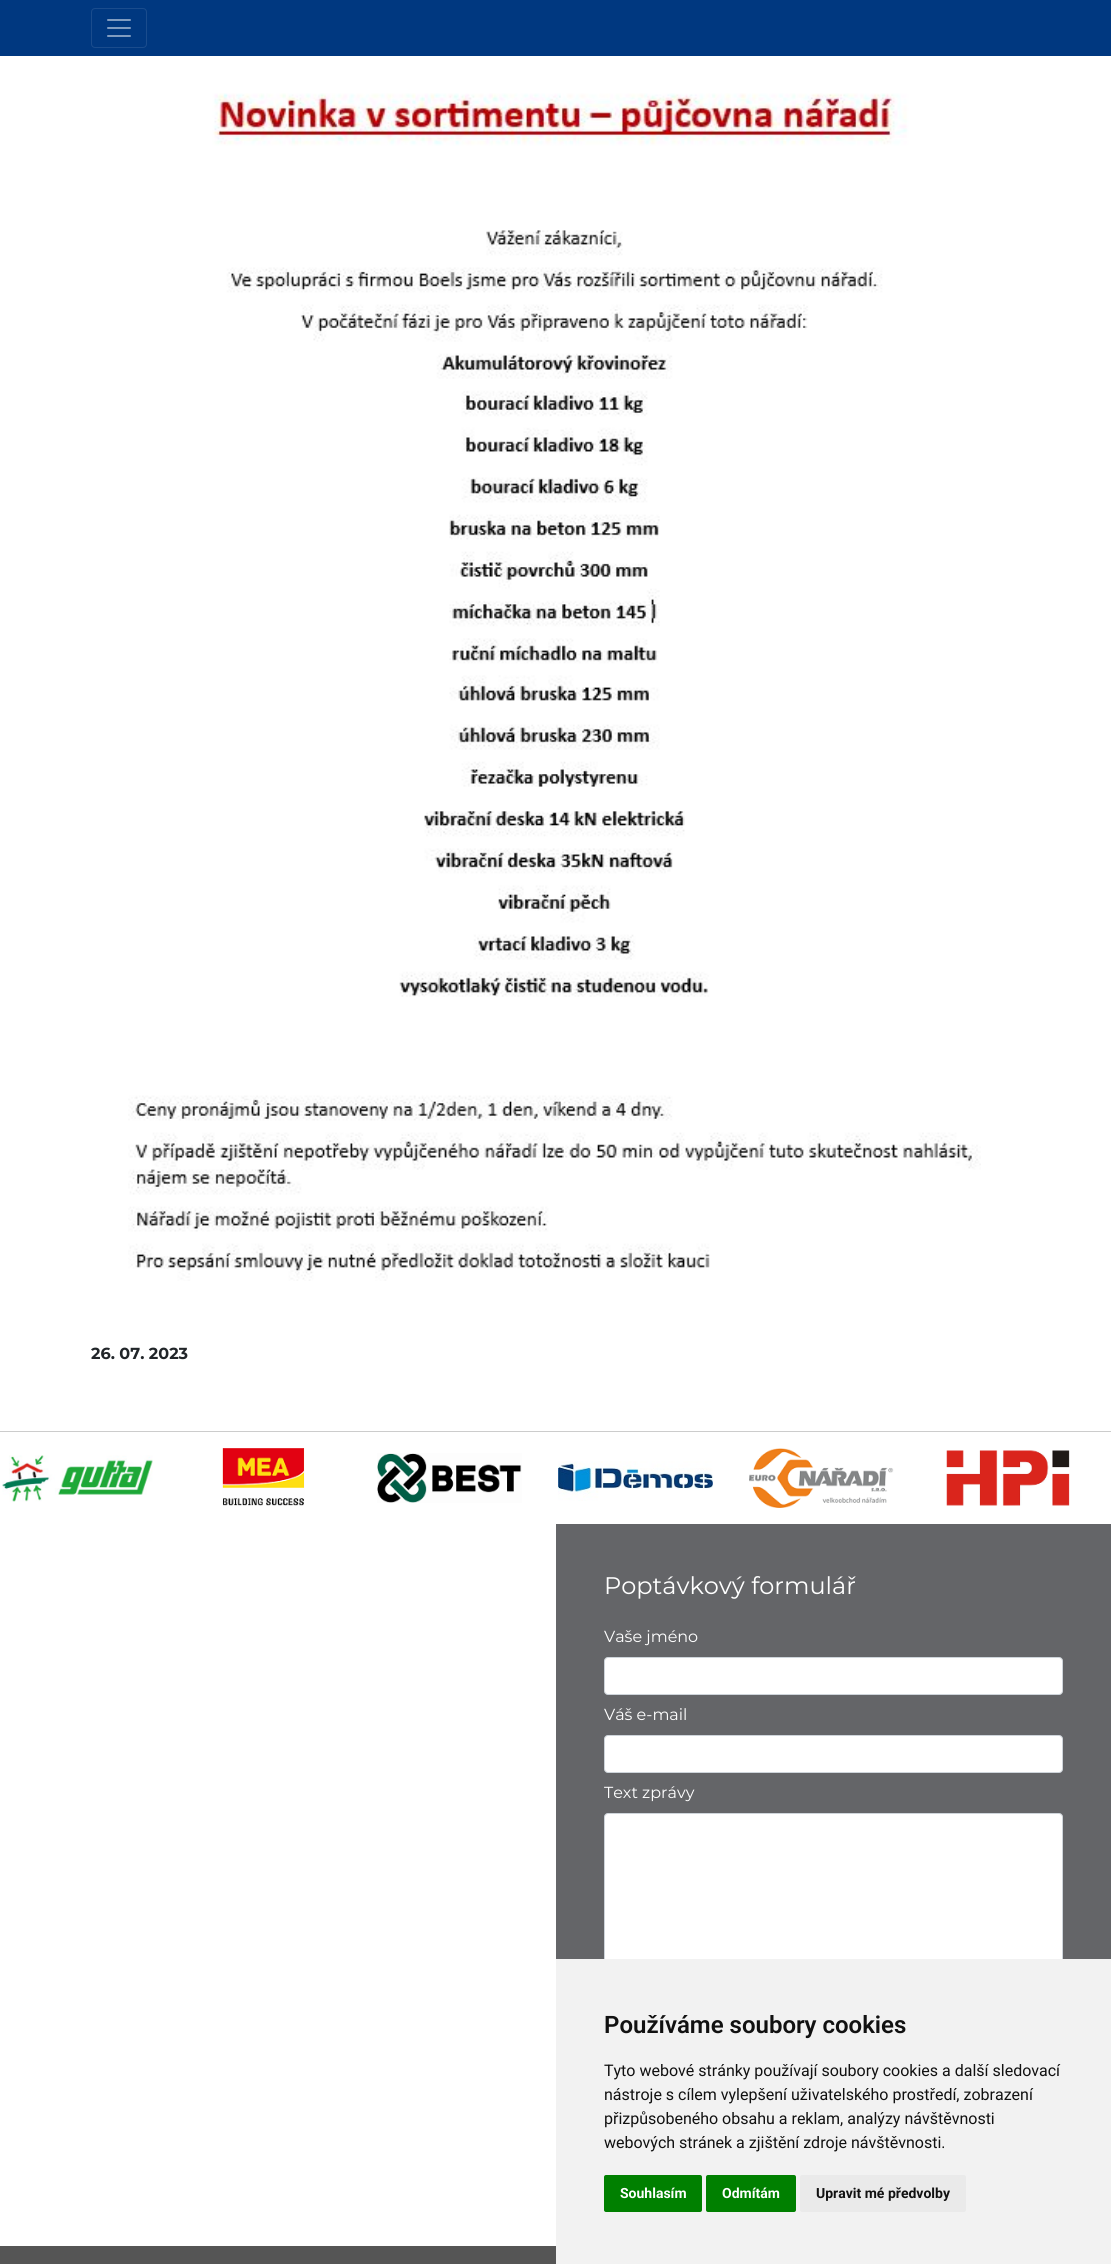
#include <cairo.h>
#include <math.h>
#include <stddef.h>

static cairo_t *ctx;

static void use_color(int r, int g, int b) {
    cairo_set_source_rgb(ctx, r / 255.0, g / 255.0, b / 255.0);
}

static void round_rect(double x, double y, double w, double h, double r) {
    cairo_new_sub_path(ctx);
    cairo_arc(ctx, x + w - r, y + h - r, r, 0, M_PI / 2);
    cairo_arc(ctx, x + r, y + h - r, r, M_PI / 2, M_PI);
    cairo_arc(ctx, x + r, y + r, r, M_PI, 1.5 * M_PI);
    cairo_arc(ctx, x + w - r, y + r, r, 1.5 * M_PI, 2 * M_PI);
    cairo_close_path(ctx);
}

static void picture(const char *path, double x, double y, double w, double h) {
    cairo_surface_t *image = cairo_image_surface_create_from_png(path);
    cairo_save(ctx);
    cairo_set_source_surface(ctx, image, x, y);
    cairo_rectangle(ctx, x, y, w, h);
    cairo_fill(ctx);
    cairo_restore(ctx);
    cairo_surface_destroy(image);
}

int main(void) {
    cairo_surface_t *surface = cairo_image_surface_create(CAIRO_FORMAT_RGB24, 1111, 2264);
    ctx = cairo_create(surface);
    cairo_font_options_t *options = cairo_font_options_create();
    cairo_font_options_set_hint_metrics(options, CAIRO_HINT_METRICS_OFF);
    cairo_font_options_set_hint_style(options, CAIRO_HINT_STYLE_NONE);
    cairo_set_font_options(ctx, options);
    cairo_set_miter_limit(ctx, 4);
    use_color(255, 255, 255);
    cairo_paint(ctx);
    use_color(0, 56, 128);
    cairo_rectangle(ctx, 0, 0, 1111, 56);
    cairo_fill(ctx);
    round_rect(91.5, 8.5, 55, 39, 3.5);
    use_color(26, 76, 141);
    cairo_set_line_width(ctx, 1);
    cairo_stroke(ctx);
    picture("img1.png", 107, 19, 24, 18);
    picture("img2.png", 128, 93, 853, 1188);
    cairo_select_font_face(ctx, "Montserrat", CAIRO_FONT_SLANT_NORMAL, CAIRO_FONT_WEIGHT_BOLD);
    cairo_set_font_size(ctx, 16);
    use_color(33, 37, 41);
    cairo_move_to(ctx, 91, 1359);
    cairo_show_text(ctx, "26. 07. 2023");
    use_color(204, 204, 204);
    cairo_rectangle(ctx, 0, 1431, 1111, 1);
    cairo_fill(ctx);
    picture("img3.png", 2, 1455, 151, 47);
    picture("img4.png", 222, 1448, 83, 58);
    picture("img5.png", 377, 1453, 145, 50);
    picture("img6.png", 558, 1461, 155, 40);
    picture("img7.png", 749, 1448, 145, 60);
    picture("img8.png", 946, 1450, 124, 56);
    use_color(100, 101, 104);
    cairo_rectangle(ctx, 556, 1524, 555, 435);
    cairo_fill(ctx);
    cairo_select_font_face(ctx, "Montserrat", CAIRO_FONT_SLANT_NORMAL, CAIRO_FONT_WEIGHT_NORMAL);
    cairo_set_font_size(ctx, 24);
    use_color(255, 255, 255);
    cairo_move_to(ctx, 604, 1594);
    cairo_show_text(ctx, "Poptávkový formulář");
    cairo_set_font_size(ctx, 16);
    cairo_move_to(ctx, 604, 1642);
    cairo_show_text(ctx, "Vaše jméno");
    round_rect(604.5, 1657.5, 458, 37, 3.5);
    cairo_fill_preserve(ctx);
    use_color(206, 212, 218);
    cairo_stroke(ctx);
    use_color(255, 255, 255);
    cairo_move_to(ctx, 604, 1720);
    cairo_show_text(ctx, "Váš e-mail");
    round_rect(604.5, 1735.5, 458, 37, 3.5);
    cairo_fill_preserve(ctx);
    use_color(206, 212, 218);
    cairo_stroke(ctx);
    use_color(255, 255, 255);
    cairo_move_to(ctx, 604, 1798);
    cairo_show_text(ctx, "Text zprávy");
    round_rect(604.5, 1813.5, 458, 205, 3.5);
    cairo_fill_preserve(ctx);
    use_color(206, 212, 218);
    cairo_stroke(ctx);
    use_color(242, 242, 242);
    cairo_rectangle(ctx, 556, 1959, 555, 305);
    cairo_fill(ctx);
    cairo_select_font_face(ctx, "Roboto SemiBold", CAIRO_FONT_SLANT_NORMAL, CAIRO_FONT_WEIGHT_NORMAL);
    cairo_set_font_size(ctx, 24);
    use_color(17, 17, 17);
    cairo_move_to(ctx, 604, 2033);
    cairo_show_text(ctx, "Používáme soubory cookies");
    cairo_select_font_face(ctx, "Roboto", CAIRO_FONT_SLANT_NORMAL, CAIRO_FONT_WEIGHT_NORMAL);
    cairo_set_font_size(ctx, 16);
    cairo_move_to(ctx, 604, 2076);
    cairo_show_text(ctx, "Tyto webové stránky používají soubory cookies a další sledovací");
    cairo_move_to(ctx, 604, 2100);
    cairo_show_text(ctx, "nástroje s cílem vylepšení uživatelského prostředí, zobrazení");
    cairo_move_to(ctx, 604, 2124);
    cairo_show_text(ctx, "přizpůsobeného obsahu a reklam, analýzy návštěvnosti");
    cairo_move_to(ctx, 604, 2148);
    cairo_show_text(ctx, "webových stránek a zjištění zdroje návštěvnosti.");
    use_color(0, 128, 0);
    round_rect(604, 2175, 98, 37, 2);
    cairo_fill(ctx);
    cairo_select_font_face(ctx, "Roboto", CAIRO_FONT_SLANT_NORMAL, CAIRO_FONT_WEIGHT_BOLD);
    cairo_set_font_size(ctx, 14);
    use_color(255, 255, 255);
    cairo_move_to(ctx, 620, 2198);
    cairo_show_text(ctx, "Souhlasím");
    use_color(0, 128, 0);
    round_rect(706, 2175, 90, 37, 2);
    cairo_fill(ctx);
    use_color(255, 255, 255);
    cairo_move_to(ctx, 722, 2198);
    cairo_show_text(ctx, "Odmítám");
    use_color(234, 234, 234);
    round_rect(800, 2175, 166, 37, 2);
    cairo_fill(ctx);
    use_color(17, 17, 17);
    cairo_move_to(ctx, 816, 2198);
    cairo_show_text(ctx, "Upravit mé předvolby");
    use_color(85, 85, 85);
    cairo_rectangle(ctx, 0, 2246, 556, 18);
    cairo_fill(ctx);
    cairo_surface_write_to_png(surface, "result.png");
    cairo_font_options_destroy(options);
    cairo_destroy(ctx);
    cairo_surface_destroy(surface);
    return 0;
}
